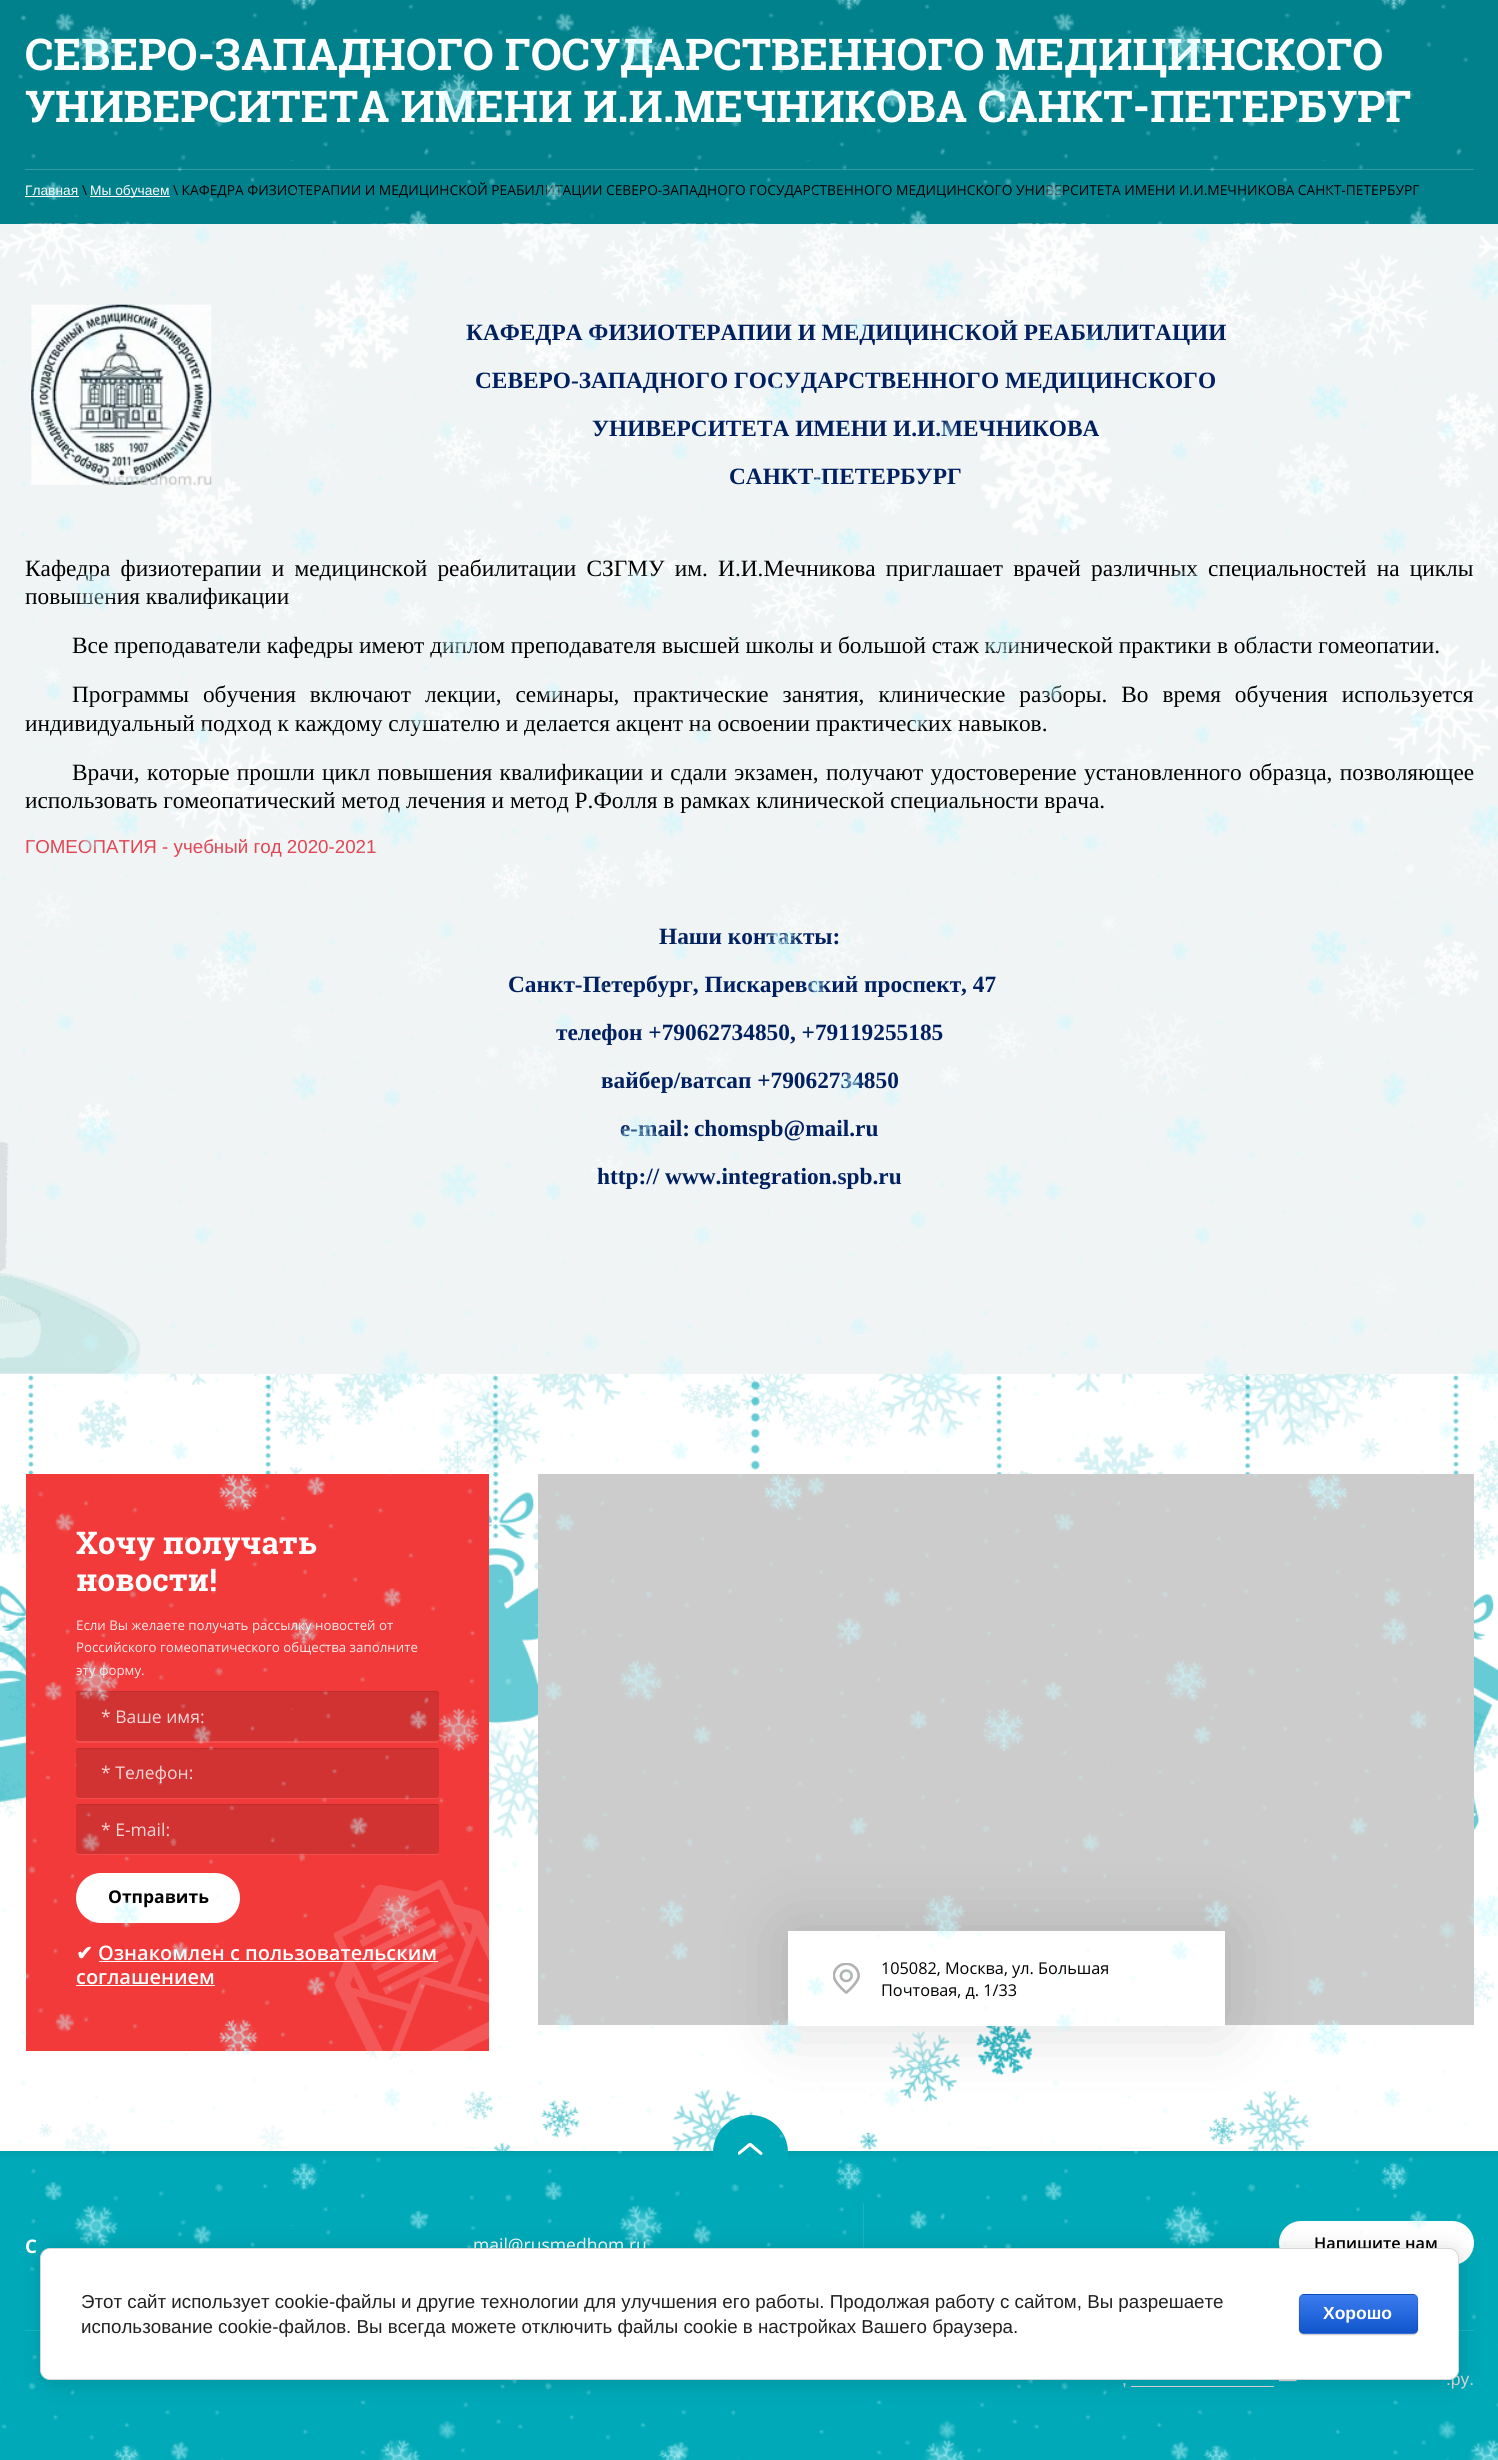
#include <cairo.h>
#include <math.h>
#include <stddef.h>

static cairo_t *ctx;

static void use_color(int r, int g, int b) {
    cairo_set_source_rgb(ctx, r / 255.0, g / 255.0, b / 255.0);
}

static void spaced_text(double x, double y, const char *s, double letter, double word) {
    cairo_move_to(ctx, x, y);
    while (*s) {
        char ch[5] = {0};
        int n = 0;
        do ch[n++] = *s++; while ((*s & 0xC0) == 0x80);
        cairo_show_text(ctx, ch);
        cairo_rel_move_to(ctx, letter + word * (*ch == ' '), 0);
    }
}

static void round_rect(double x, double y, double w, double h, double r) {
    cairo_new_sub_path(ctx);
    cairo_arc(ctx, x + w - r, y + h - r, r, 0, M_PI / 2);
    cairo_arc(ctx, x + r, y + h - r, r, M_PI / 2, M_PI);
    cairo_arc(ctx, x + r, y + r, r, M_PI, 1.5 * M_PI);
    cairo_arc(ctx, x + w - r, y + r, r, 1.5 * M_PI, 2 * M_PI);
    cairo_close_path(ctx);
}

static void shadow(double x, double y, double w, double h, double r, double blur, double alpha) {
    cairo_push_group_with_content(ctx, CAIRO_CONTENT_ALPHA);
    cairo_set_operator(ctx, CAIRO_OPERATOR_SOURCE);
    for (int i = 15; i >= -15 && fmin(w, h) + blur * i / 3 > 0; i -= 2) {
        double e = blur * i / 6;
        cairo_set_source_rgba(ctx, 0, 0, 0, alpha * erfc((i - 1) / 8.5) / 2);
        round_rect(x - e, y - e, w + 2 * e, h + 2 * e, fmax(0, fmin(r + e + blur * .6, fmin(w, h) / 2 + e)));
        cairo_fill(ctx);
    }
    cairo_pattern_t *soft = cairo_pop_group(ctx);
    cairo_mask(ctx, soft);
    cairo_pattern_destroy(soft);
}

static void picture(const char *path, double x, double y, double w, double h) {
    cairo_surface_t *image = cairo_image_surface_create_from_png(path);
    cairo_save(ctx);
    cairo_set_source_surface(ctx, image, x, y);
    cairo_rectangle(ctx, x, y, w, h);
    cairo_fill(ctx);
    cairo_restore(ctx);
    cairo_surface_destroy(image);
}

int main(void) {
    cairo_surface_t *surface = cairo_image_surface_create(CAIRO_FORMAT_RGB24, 1498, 2460);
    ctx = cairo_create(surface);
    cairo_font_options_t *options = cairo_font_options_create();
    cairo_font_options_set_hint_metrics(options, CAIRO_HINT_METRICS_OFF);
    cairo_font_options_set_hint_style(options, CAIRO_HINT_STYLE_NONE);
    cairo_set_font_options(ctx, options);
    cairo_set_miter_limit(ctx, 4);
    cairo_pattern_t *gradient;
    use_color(0, 169, 184);
    cairo_paint(ctx);
    use_color(0, 0, 0);
    shadow(0, 1378, 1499, 777, 0, 4, 0.08);
    use_color(240, 244, 245);
    cairo_rectangle(ctx, 0, 224, 1498, 1150);
    cairo_fill(ctx);
    picture("img4.png", 0, 223, 1498, 1151);
    cairo_set_source_rgba(ctx, 0, 0, 0, 0.24);
    cairo_rectangle(ctx, 0, 0, 1498, 224);
    cairo_fill(ctx);
    cairo_select_font_face(ctx, "Roboto Slab", CAIRO_FONT_SLANT_NORMAL, CAIRO_FONT_WEIGHT_BOLD);
    cairo_set_font_size(ctx, 43.75);
    use_color(255, 255, 255);
    cairo_move_to(ctx, 25, 70);
    cairo_show_text(ctx, "СЕВЕРО-ЗАПАДНОГО ГОСУДАРСТВЕННОГО МЕДИЦИНСКОГО");
    cairo_move_to(ctx, 25, 122);
    cairo_show_text(ctx, "УНИВЕРСИТЕТА ИМЕНИ И.И.МЕЧНИКОВА САНКТ-ПЕТЕРБУРГ");
    use_color(51, 154, 163);
    cairo_rectangle(ctx, 25, 169, 1449, 1);
    cairo_fill(ctx);
    cairo_select_font_face(ctx, "Liberation Sans", CAIRO_FONT_SLANT_NORMAL, CAIRO_FONT_WEIGHT_NORMAL);
    cairo_set_font_size(ctx, 13.75);
    use_color(255, 255, 255);
    cairo_move_to(ctx, 25, 195);
    cairo_show_text(ctx, "Главная");
    cairo_rectangle(ctx, 25, 196, 54, 1);
    cairo_fill(ctx);
    cairo_select_font_face(ctx, "Open Sans", CAIRO_FONT_SLANT_NORMAL, CAIRO_FONT_WEIGHT_NORMAL);
    use_color(0, 0, 0);
    cairo_move_to(ctx, 82, 195);
    cairo_show_text(ctx, "\\");
    use_color(255, 255, 255);
    cairo_rectangle(ctx, 90, 196, 80, 1);
    cairo_fill(ctx);
    cairo_select_font_face(ctx, "Liberation Sans", CAIRO_FONT_SLANT_NORMAL, CAIRO_FONT_WEIGHT_NORMAL);
    cairo_move_to(ctx, 90, 195);
    cairo_show_text(ctx, "Мы обучаем");
    cairo_select_font_face(ctx, "Open Sans", CAIRO_FONT_SLANT_NORMAL, CAIRO_FONT_WEIGHT_NORMAL);
    use_color(0, 0, 0);
    cairo_move_to(ctx, 173, 195);
    cairo_show_text(ctx, "\\ КАФЕДРА ФИЗИОТЕРАПИИ И МЕДИЦИНСКОЙ РЕАБИЛИТАЦИИ СЕВЕРО-ЗАПАДНОГО ГОСУДАРСТВЕННОГО МЕДИЦИНСКОГО УНИВЕРСИТЕТА ИМЕНИ И.И.МЕЧНИКОВА САНКТ-ПЕТЕРБУРГ");
    picture("img5.png", 31, 304, 181, 181);
    cairo_select_font_face(ctx, "Liberation Serif", CAIRO_FONT_SLANT_NORMAL, CAIRO_FONT_WEIGHT_BOLD);
    cairo_set_font_size(ctx, 23.33);
    use_color(0, 32, 96);
    cairo_move_to(ctx, 466, 340);
    cairo_show_text(ctx, "КАФЕДРА ФИЗИОТЕРАПИИ И МЕДИЦИНСКОЙ РЕАБИЛИТАЦИИ");
    cairo_move_to(ctx, 475, 388);
    cairo_show_text(ctx, "СЕВЕРО-ЗАПАДНОГО ГОСУДАРСТВЕННОГО МЕДИЦИНСКОГО");
    cairo_move_to(ctx, 592, 436);
    cairo_show_text(ctx, "УНИВЕРСИТЕТА ИМЕНИ И.И.МЕЧНИКОВА");
    cairo_move_to(ctx, 729, 484);
    cairo_show_text(ctx, "САНКТ-ПЕТЕРБУРГ");
    cairo_select_font_face(ctx, "Liberation Serif", CAIRO_FONT_SLANT_NORMAL, CAIRO_FONT_WEIGHT_NORMAL);
    use_color(0, 0, 0);
    spaced_text(25, 576, "Кафедра физиотерапии и медицинской реабилитации СЗГМУ им. И.И.Мечникова приглашает врачей различных специальностей на циклы", 0, 4.4);
    cairo_move_to(ctx, 25, 604);
    cairo_show_text(ctx, "повышения квалификации");
    cairo_move_to(ctx, 72, 653);
    cairo_show_text(ctx, "Все преподаватели кафедры имеют диплом преподавателя высшей школы и большой стаж клинической практики в области гомеопатии.");
    spaced_text(72, 702, "Программы обучения включают лекции, семинары, практические занятия, клинические разборы. Во время обучения используется", 0, 8.1);
    cairo_move_to(ctx, 25, 731);
    cairo_show_text(ctx, "индивидуальный подход к каждому слушателю и делается акцент на освоении практических навыков.");
    spaced_text(72, 780, "Врачи, которые прошли цикл повышения квалификации и сдали экзамен, получают удостоверение установленного образца, позволяющее", 0, 1.5);
    cairo_move_to(ctx, 25, 808);
    cairo_show_text(ctx, "использовать гомеопатический метод лечения и метод Р.Фолля в рамках клинической специальности врача.");
    cairo_select_font_face(ctx, "Liberation Sans", CAIRO_FONT_SLANT_NORMAL, CAIRO_FONT_WEIGHT_NORMAL);
    cairo_set_font_size(ctx, 18.75);
    use_color(224, 70, 83);
    cairo_move_to(ctx, 25, 853);
    cairo_show_text(ctx, "ГОМЕОПАТИЯ - учебный год 2020-2021");
    cairo_select_font_face(ctx, "Liberation Serif", CAIRO_FONT_SLANT_NORMAL, CAIRO_FONT_WEIGHT_BOLD);
    cairo_set_font_size(ctx, 23.33);
    use_color(0, 32, 96);
    cairo_move_to(ctx, 659, 944);
    cairo_show_text(ctx, "Наши контакты:");
    cairo_move_to(ctx, 508, 992);
    cairo_show_text(ctx, "Санкт-Петербург, Пискаревский проспект, 47");
    cairo_move_to(ctx, 556, 1040);
    cairo_show_text(ctx, "телефон +79062734850, +79119255185");
    cairo_move_to(ctx, 601, 1088);
    cairo_show_text(ctx, "вайбер/ватсап +79062734850");
    cairo_move_to(ctx, 620, 1136);
    cairo_show_text(ctx, "e-mail:");
    cairo_move_to(ctx, 694, 1136);
    cairo_show_text(ctx, "chomspb@mail.ru");
    cairo_move_to(ctx, 597, 1184);
    cairo_show_text(ctx, "http:// www.integration.spb.ru");
    use_color(255, 255, 255);
    cairo_rectangle(ctx, 0, 1374, 1498, 777);
    cairo_fill(ctx);
    picture("img6.png", 0, 1374, 1498, 777);
    use_color(242, 58, 58);
    cairo_rectangle(ctx, 26, 1474, 463, 577);
    cairo_fill(ctx);
    picture("img7.png", 334, 1880, 155, 171);
    cairo_select_font_face(ctx, "Roboto Slab", CAIRO_FONT_SLANT_NORMAL, CAIRO_FONT_WEIGHT_BOLD);
    cairo_set_font_size(ctx, 31.25);
    use_color(255, 255, 255);
    cairo_move_to(ctx, 76, 1554);
    cairo_show_text(ctx, "Хочу получать");
    cairo_move_to(ctx, 76, 1591);
    cairo_show_text(ctx, "новости!");
    cairo_select_font_face(ctx, "Open Sans", CAIRO_FONT_SLANT_NORMAL, CAIRO_FONT_WEIGHT_NORMAL);
    cairo_set_font_size(ctx, 13.3);
    use_color(254, 235, 235);
    cairo_move_to(ctx, 76, 1630);
    cairo_show_text(ctx, "Если Вы желаете получать рассылку новостей от");
    cairo_move_to(ctx, 76, 1652);
    cairo_show_text(ctx, "Российского гомеопатического общества заполните");
    cairo_move_to(ctx, 76, 1675);
    cairo_show_text(ctx, "эту форму.");
    use_color(243, 78, 78);
    cairo_new_path(ctx);
    cairo_move_to(ctx, 76, 1694);
    cairo_line_to(ctx, 76, 1740);
    cairo_curve_to(ctx, 76, 1742, 77, 1743, 78, 1743);
    cairo_line_to(ctx, 436, 1743);
    cairo_curve_to(ctx, 438, 1743, 439, 1742, 439, 1740);
    cairo_line_to(ctx, 439, 1694);
    cairo_line_to(ctx, 439, 1739);
    cairo_curve_to(ctx, 439, 1740, 438, 1741, 436, 1741);
    cairo_line_to(ctx, 79, 1741);
    cairo_curve_to(ctx, 77, 1741, 76, 1740, 76, 1739);
    cairo_close_path(ctx);
    cairo_fill(ctx);
    cairo_set_source_rgba(ctx, 0, 0, 0, 0.14);
    round_rect(76, 1691, 363, 50, 2.5);
    cairo_fill(ctx);
    cairo_set_source_rgba(ctx, 0, 0, 0, 0.1);
    cairo_new_path(ctx);
    cairo_move_to(ctx, 79, 1692);
    cairo_line_to(ctx, 436, 1692);
    cairo_curve_to(ctx, 438, 1692, 439, 1694, 439, 1695);
    cairo_curve_to(ctx, 439, 1693, 439, 1691, 436, 1691);
    cairo_line_to(ctx, 78, 1691);
    cairo_curve_to(ctx, 76, 1691, 76, 1693, 76, 1695);
    cairo_curve_to(ctx, 76, 1694, 77, 1692, 79, 1692);
    cairo_close_path(ctx);
    cairo_fill(ctx);
    cairo_set_font_size(ctx, 17.5);
    use_color(246, 214, 214);
    cairo_move_to(ctx, 101, 1723);
    cairo_show_text(ctx, "* Ваше имя:");
    use_color(243, 78, 78);
    cairo_new_path(ctx);
    cairo_move_to(ctx, 76, 1750);
    cairo_line_to(ctx, 76, 1796);
    cairo_curve_to(ctx, 76, 1798, 77, 1799, 78, 1799);
    cairo_line_to(ctx, 436, 1799);
    cairo_curve_to(ctx, 438, 1799, 439, 1798, 439, 1796);
    cairo_line_to(ctx, 439, 1750);
    cairo_line_to(ctx, 439, 1795);
    cairo_curve_to(ctx, 439, 1796, 438, 1798, 436, 1798);
    cairo_line_to(ctx, 79, 1798);
    cairo_curve_to(ctx, 77, 1798, 76, 1796, 76, 1795);
    cairo_close_path(ctx);
    cairo_fill(ctx);
    cairo_set_source_rgba(ctx, 0, 0, 0, 0.14);
    round_rect(76, 1748, 363, 50, 2.5);
    cairo_fill(ctx);
    cairo_set_source_rgba(ctx, 0, 0, 0, 0.1);
    cairo_new_path(ctx);
    cairo_move_to(ctx, 79, 1749);
    cairo_line_to(ctx, 436, 1749);
    cairo_curve_to(ctx, 438, 1749, 439, 1750, 439, 1751);
    cairo_curve_to(ctx, 439, 1749, 438, 1748, 436, 1748);
    cairo_line_to(ctx, 78, 1748);
    cairo_curve_to(ctx, 77, 1748, 76, 1749, 76, 1751);
    cairo_curve_to(ctx, 76, 1750, 77, 1749, 79, 1749);
    cairo_close_path(ctx);
    cairo_fill(ctx);
    use_color(246, 214, 214);
    cairo_move_to(ctx, 101, 1779);
    cairo_show_text(ctx, "* Телефон:");
    use_color(243, 78, 78);
    cairo_new_path(ctx);
    cairo_move_to(ctx, 76, 1806);
    cairo_line_to(ctx, 76, 1852);
    cairo_curve_to(ctx, 76, 1854, 77, 1855, 78, 1855);
    cairo_line_to(ctx, 436, 1855);
    cairo_curve_to(ctx, 438, 1855, 439, 1854, 439, 1852);
    cairo_line_to(ctx, 439, 1806);
    cairo_line_to(ctx, 439, 1851);
    cairo_curve_to(ctx, 439, 1853, 438, 1854, 436, 1854);
    cairo_line_to(ctx, 79, 1854);
    cairo_curve_to(ctx, 77, 1854, 76, 1853, 76, 1851);
    cairo_close_path(ctx);
    cairo_fill(ctx);
    cairo_set_source_rgba(ctx, 0, 0, 0, 0.14);
    round_rect(76, 1804, 363, 50, 2.5);
    cairo_fill(ctx);
    cairo_set_source_rgba(ctx, 0, 0, 0, 0.1);
    cairo_new_path(ctx);
    cairo_move_to(ctx, 79, 1805);
    cairo_line_to(ctx, 436, 1805);
    cairo_curve_to(ctx, 438, 1805, 439, 1806, 439, 1808);
    cairo_curve_to(ctx, 439, 1806, 439, 1804, 436, 1804);
    cairo_line_to(ctx, 78, 1804);
    cairo_curve_to(ctx, 76, 1804, 76, 1806, 76, 1808);
    cairo_curve_to(ctx, 76, 1806, 77, 1805, 79, 1805);
    cairo_close_path(ctx);
    cairo_fill(ctx);
    use_color(246, 214, 214);
    cairo_move_to(ctx, 101, 1836);
    cairo_show_text(ctx, "* E-mail:");
    use_color(255, 255, 255);
    round_rect(76, 1873, 164, 50, 25);
    cairo_fill(ctx);
    cairo_select_font_face(ctx, "Open Sans", CAIRO_FONT_SLANT_NORMAL, CAIRO_FONT_WEIGHT_BOLD);
    use_color(0, 0, 0);
    cairo_move_to(ctx, 108, 1903);
    cairo_show_text(ctx, "Отправить");
    cairo_select_font_face(ctx, "DejaVu Sans", CAIRO_FONT_SLANT_NORMAL, CAIRO_FONT_WEIGHT_BOLD);
    cairo_set_font_size(ctx, 20);
    use_color(255, 255, 255);
    cairo_move_to(ctx, 76, 1960);
    cairo_show_text(ctx, "✔");
    cairo_select_font_face(ctx, "Open Sans SemiBold", CAIRO_FONT_SLANT_NORMAL, CAIRO_FONT_WEIGHT_NORMAL);
    cairo_move_to(ctx, 98, 1960);
    cairo_show_text(ctx, "Ознакомлен с пользовательским");
    cairo_rectangle(ctx, 99, 1961, 339, 1);
    cairo_fill(ctx);
    cairo_move_to(ctx, 76, 1984);
    cairo_show_text(ctx, "соглашением");
    cairo_rectangle(ctx, 76, 1985, 139, 1);
    cairo_fill(ctx);
    use_color(204, 204, 204);
    cairo_rectangle(ctx, 538, 1474, 936, 551);
    cairo_fill(ctx);
    use_color(0, 0, 0);
    shadow(788, 1931, 437, 95, 0, 37, 0.14);
    use_color(255, 255, 255);
    cairo_rectangle(ctx, 788, 1931, 437, 95);
    cairo_fill(ctx);
    picture("img8.png", 833, 1963, 27, 31);
    cairo_select_font_face(ctx, "Open Sans", CAIRO_FONT_SLANT_NORMAL, CAIRO_FONT_WEIGHT_NORMAL);
    cairo_set_font_size(ctx, 16.25);
    use_color(0, 0, 0);
    cairo_move_to(ctx, 881, 1974);
    cairo_show_text(ctx, "105082, Москва, ул. Большая");
    cairo_move_to(ctx, 881, 1996);
    cairo_show_text(ctx, "Почтовая, д. 1/33");
    use_color(0, 169, 184);
    cairo_new_path(ctx);
    cairo_arc(ctx, 750.5, 2152.5, 37.5, 0, 2 * M_PI);
    cairo_fill(ctx);
    picture("img9.png", 738, 2143, 25, 12);
    cairo_set_font_size(ctx, 17.5);
    use_color(255, 255, 255);
    cairo_move_to(ctx, 473, 2251);
    cairo_show_text(ctx, "mail@rusmedhom.ru");
    use_color(26, 178, 191);
    cairo_rectangle(ctx, 863, 2203, 1, 45);
    cairo_fill(ctx);
    use_color(255, 255, 255);
    round_rect(1279, 2221, 195, 44, 22);
    cairo_fill(ctx);
    cairo_select_font_face(ctx, "Open Sans SemiBold", CAIRO_FONT_SLANT_NORMAL, CAIRO_FONT_WEIGHT_NORMAL);
    cairo_set_font_size(ctx, 16.25);
    use_color(0, 0, 0);
    cairo_move_to(ctx, 1314, 2249);
    cairo_show_text(ctx, "Напишите нам");
    use_color(26, 178, 191);
    cairo_rectangle(ctx, 25, 2330, 1449, 1);
    cairo_fill(ctx);
    cairo_select_font_face(ctx, "Liberation Sans", CAIRO_FONT_SLANT_NORMAL, CAIRO_FONT_WEIGHT_NORMAL);
    cairo_set_font_size(ctx, 17.5);
    use_color(216, 216, 216);
    cairo_move_to(ctx, 1279, 2385);
    cairo_show_text(ctx, "—");
    cairo_move_to(ctx, 1446, 2385);
    cairo_show_text(ctx, ".ру.");
    cairo_move_to(ctx, 1122, 2385);
    cairo_show_text(ctx, ",");
    cairo_rectangle(ctx, 1131, 2386, 143, 1);
    cairo_fill(ctx);
    picture("img1.png", 74, 0, 1424, 2460);
    picture("img3.png", 44, 13, 1412, 2447);
    cairo_select_font_face(ctx, "Open Sans", CAIRO_FONT_SLANT_NORMAL, CAIRO_FONT_WEIGHT_BOLD);
    cairo_set_font_size(ctx, 18.75);
    use_color(255, 255, 255);
    cairo_move_to(ctx, 25, 2253);
    cairo_show_text(ctx, "C");
    picture("img2.png", 0, 4, 1498, 2456);
    use_color(0, 0, 0);
    shadow(43, 2250, 1418, 133, 10, 11, 0.14);
    use_color(255, 255, 255);
    round_rect(40.5, 2248.5, 1418, 131, 9.5);
    cairo_fill_preserve(ctx);
    use_color(214, 214, 214);
    cairo_set_line_width(ctx, 1);
    cairo_stroke(ctx);
    cairo_select_font_face(ctx, "Liberation Sans", CAIRO_FONT_SLANT_NORMAL, CAIRO_FONT_WEIGHT_NORMAL);
    use_color(33, 33, 33);
    cairo_move_to(ctx, 81, 2308);
    cairo_show_text(ctx, "Этот сайт использует cookie-файлы и другие технологии для улучшения его работы. Продолжая работу с сайтом, Вы разрешаете");
    cairo_move_to(ctx, 81, 2333);
    cairo_show_text(ctx, "использование cookie-файлов. Вы всегда можете отключить файлы cookie в настройках Вашего браузера.");
    use_color(0, 0, 0);
    shadow(1299, 2295, 119, 40, 5, 0.5, 0.2);
    cairo_save(ctx);
    round_rect(1299, 2294, 119, 40, 5);
    cairo_clip(ctx);
    gradient = cairo_pattern_create_linear(1358, 2258, 1358, 2295);
    cairo_pattern_add_color_stop_rgba(gradient, 0, 0.231, 0.486, 0.937, 1);
    cairo_pattern_add_color_stop_rgba(gradient, 1, 0.067, 0.333, 0.8, 1);
    cairo_set_source(ctx, gradient);
    cairo_pattern_destroy(gradient);
    cairo_rectangle(ctx, 1299, 2294, 119, 1);
    cairo_fill(ctx);
    gradient = cairo_pattern_create_linear(1358, 2295, 1358, 2333);
    cairo_pattern_add_color_stop_rgba(gradient, 0, 0.231, 0.486, 0.937, 1);
    cairo_pattern_add_color_stop_rgba(gradient, 1, 0.067, 0.333, 0.8, 1);
    cairo_set_source(ctx, gradient);
    cairo_pattern_destroy(gradient);
    cairo_rectangle(ctx, 1299, 2295, 119, 38);
    cairo_fill(ctx);
    gradient = cairo_pattern_create_linear(1358, 2333, 1358, 2370);
    cairo_pattern_add_color_stop_rgba(gradient, 0, 0.231, 0.486, 0.937, 1);
    cairo_pattern_add_color_stop_rgba(gradient, 1, 0.067, 0.333, 0.8, 1);
    cairo_set_source(ctx, gradient);
    cairo_pattern_destroy(gradient);
    cairo_rectangle(ctx, 1299, 2333, 119, 1);
    cairo_fill(ctx);
    cairo_restore(ctx);
    round_rect(1299.5, 2294.5, 118, 39, 4.5);
    cairo_set_source_rgba(ctx, 0, 0, 0, 0.1);
    cairo_stroke(ctx);
    cairo_select_font_face(ctx, "Liberation Sans", CAIRO_FONT_SLANT_NORMAL, CAIRO_FONT_WEIGHT_BOLD);
    cairo_set_font_size(ctx, 17.5);
    use_color(255, 255, 255);
    cairo_move_to(ctx, 1323, 2319);
    cairo_show_text(ctx, "Хорошо");
    cairo_surface_write_to_png(surface, "result.png");
    cairo_font_options_destroy(options);
    cairo_destroy(ctx);
    cairo_surface_destroy(surface);
    return 0;
}
